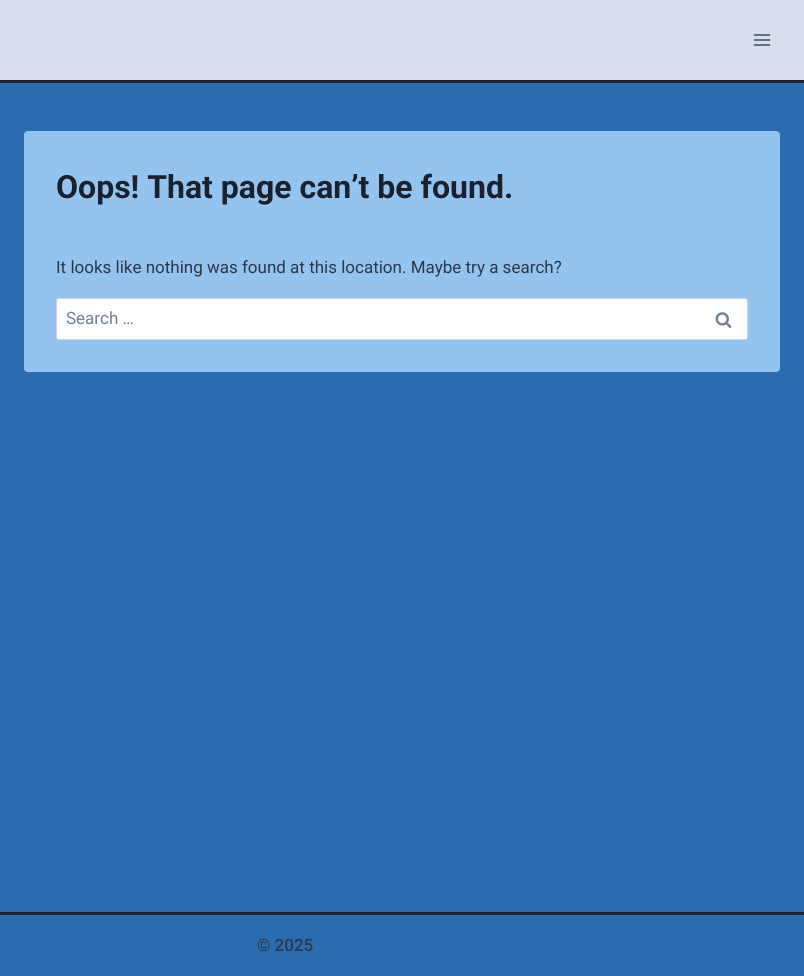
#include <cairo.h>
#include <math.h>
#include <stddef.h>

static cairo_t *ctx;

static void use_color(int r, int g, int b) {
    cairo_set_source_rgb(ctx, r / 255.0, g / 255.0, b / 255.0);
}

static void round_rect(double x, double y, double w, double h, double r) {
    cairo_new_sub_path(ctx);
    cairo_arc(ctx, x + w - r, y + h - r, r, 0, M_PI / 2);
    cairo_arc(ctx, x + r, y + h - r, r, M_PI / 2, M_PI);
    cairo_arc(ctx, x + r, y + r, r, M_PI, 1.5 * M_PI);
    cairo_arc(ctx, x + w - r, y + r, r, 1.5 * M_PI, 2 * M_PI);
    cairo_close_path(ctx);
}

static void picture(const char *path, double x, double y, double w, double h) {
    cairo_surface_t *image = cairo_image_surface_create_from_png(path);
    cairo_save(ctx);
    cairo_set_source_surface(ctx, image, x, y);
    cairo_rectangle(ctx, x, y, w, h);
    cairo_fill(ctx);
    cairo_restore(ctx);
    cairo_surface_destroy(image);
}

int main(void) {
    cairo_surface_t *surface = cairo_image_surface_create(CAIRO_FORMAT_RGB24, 804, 976);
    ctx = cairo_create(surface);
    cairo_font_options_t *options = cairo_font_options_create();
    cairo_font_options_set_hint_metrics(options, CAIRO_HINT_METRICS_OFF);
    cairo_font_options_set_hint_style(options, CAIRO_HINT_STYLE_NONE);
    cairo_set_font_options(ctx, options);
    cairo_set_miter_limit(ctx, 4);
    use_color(43, 108, 176);
    cairo_paint(ctx);
    use_color(214, 223, 235);
    cairo_rectangle(ctx, 0, 0, 804, 80);
    cairo_fill(ctx);
    use_color(26, 32, 44);
    cairo_rectangle(ctx, 0, 80, 804, 3);
    cairo_fill(ctx);
    picture("img1.png", 753, 34, 18, 12);
    use_color(147, 196, 239);
    round_rect(24, 131, 756, 241, 4);
    cairo_fill(ctx);
    cairo_select_font_face(ctx, "Roboto", CAIRO_FONT_SLANT_NORMAL, CAIRO_FONT_WEIGHT_BOLD);
    cairo_set_font_size(ctx, 32);
    use_color(26, 32, 44);
    cairo_move_to(ctx, 56, 198);
    cairo_show_text(ctx, "Oops! That page can’t be found.");
    cairo_select_font_face(ctx, "Roboto", CAIRO_FONT_SLANT_NORMAL, CAIRO_FONT_WEIGHT_NORMAL);
    cairo_set_font_size(ctx, 17);
    use_color(45, 55, 72);
    cairo_move_to(ctx, 56, 273);
    cairo_show_text(ctx, "It looks like nothing was found at this location. Maybe try a search?");
    use_color(255, 255, 255);
    round_rect(56.5, 298.5, 691, 41, 2.5);
    cairo_fill_preserve(ctx);
    use_color(203, 213, 224);
    cairo_set_line_width(ctx, 1);
    cairo_stroke(ctx);
    use_color(113, 128, 150);
    cairo_move_to(ctx, 66, 324);
    cairo_show_text(ctx, "Search …");
    picture("img2.png", 715, 312, 17, 16);
    use_color(26, 32, 44);
    cairo_rectangle(ctx, 0, 912, 804, 3);
    cairo_fill(ctx);
    cairo_select_font_face(ctx, "Roboto Medium", CAIRO_FONT_SLANT_NORMAL, CAIRO_FONT_WEIGHT_NORMAL);
    use_color(45, 55, 72);
    cairo_move_to(ctx, 257, 951);
    cairo_show_text(ctx, "© 2025");
    cairo_surface_write_to_png(surface, "result.png");
    cairo_font_options_destroy(options);
    cairo_destroy(ctx);
    cairo_surface_destroy(surface);
    return 0;
}
